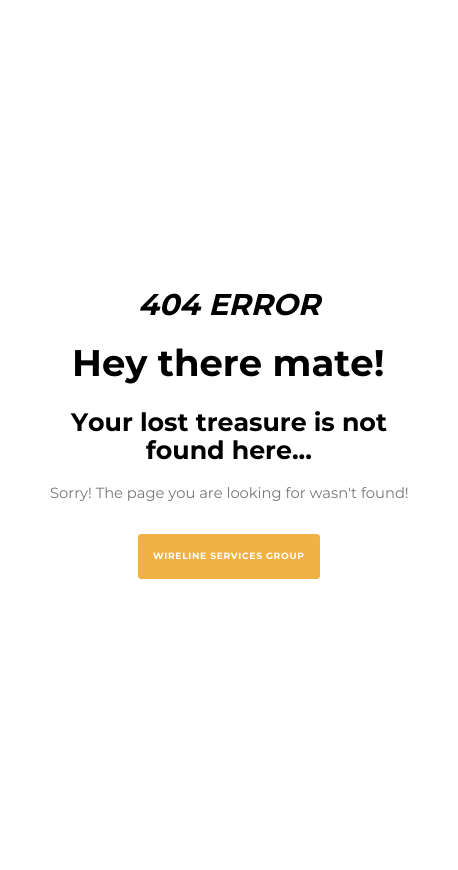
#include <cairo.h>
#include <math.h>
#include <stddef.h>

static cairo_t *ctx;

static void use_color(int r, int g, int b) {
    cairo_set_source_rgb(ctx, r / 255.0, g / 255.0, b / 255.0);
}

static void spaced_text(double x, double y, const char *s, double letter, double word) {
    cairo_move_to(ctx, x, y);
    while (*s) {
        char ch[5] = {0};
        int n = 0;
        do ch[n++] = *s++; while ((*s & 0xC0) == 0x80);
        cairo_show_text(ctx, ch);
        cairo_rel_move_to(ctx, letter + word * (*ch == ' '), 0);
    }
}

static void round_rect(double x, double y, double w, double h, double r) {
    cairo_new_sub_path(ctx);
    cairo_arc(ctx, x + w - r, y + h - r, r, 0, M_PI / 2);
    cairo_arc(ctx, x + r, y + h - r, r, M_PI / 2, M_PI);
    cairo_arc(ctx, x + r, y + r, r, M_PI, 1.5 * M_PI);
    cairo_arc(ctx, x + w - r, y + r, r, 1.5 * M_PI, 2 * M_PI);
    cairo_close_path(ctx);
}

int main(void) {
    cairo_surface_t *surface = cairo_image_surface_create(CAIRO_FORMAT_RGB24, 458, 870);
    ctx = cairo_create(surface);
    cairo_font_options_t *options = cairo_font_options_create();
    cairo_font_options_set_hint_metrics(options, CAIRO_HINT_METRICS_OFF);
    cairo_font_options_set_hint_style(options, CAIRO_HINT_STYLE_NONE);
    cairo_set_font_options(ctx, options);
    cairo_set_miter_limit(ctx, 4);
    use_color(255, 255, 255);
    cairo_paint(ctx);
    cairo_select_font_face(ctx, "Montserrat", CAIRO_FONT_SLANT_ITALIC, CAIRO_FONT_WEIGHT_BOLD);
    cairo_set_font_size(ctx, 30);
    use_color(0, 0, 0);
    cairo_move_to(ctx, 138, 315);
    cairo_show_text(ctx, "404 ERROR");
    cairo_select_font_face(ctx, "Montserrat", CAIRO_FONT_SLANT_NORMAL, CAIRO_FONT_WEIGHT_BOLD);
    cairo_set_font_size(ctx, 37);
    cairo_move_to(ctx, 72, 376);
    cairo_show_text(ctx, "Hey there mate!");
    cairo_set_font_size(ctx, 25.25);
    cairo_move_to(ctx, 71, 431);
    cairo_show_text(ctx, "Your lost treasure is not");
    cairo_move_to(ctx, 146, 459);
    cairo_show_text(ctx, "found here...");
    cairo_select_font_face(ctx, "Montserrat", CAIRO_FONT_SLANT_NORMAL, CAIRO_FONT_WEIGHT_NORMAL);
    cairo_set_font_size(ctx, 14.7);
    use_color(119, 119, 119);
    cairo_move_to(ctx, 50, 498);
    cairo_show_text(ctx, "Sorry! The page you are looking for wasn't found!");
    use_color(241, 177, 68);
    round_rect(138, 534, 182, 45, 3);
    cairo_fill(ctx);
    cairo_select_font_face(ctx, "Montserrat", CAIRO_FONT_SLANT_NORMAL, CAIRO_FONT_WEIGHT_BOLD);
    cairo_set_font_size(ctx, 9.1);
    use_color(255, 255, 255);
    spaced_text(153, 559, "WIRELINE SERVICES GROUP", 0.7, 0);
    cairo_surface_write_to_png(surface, "result.png");
    cairo_font_options_destroy(options);
    cairo_destroy(ctx);
    cairo_surface_destroy(surface);
    return 0;
}
